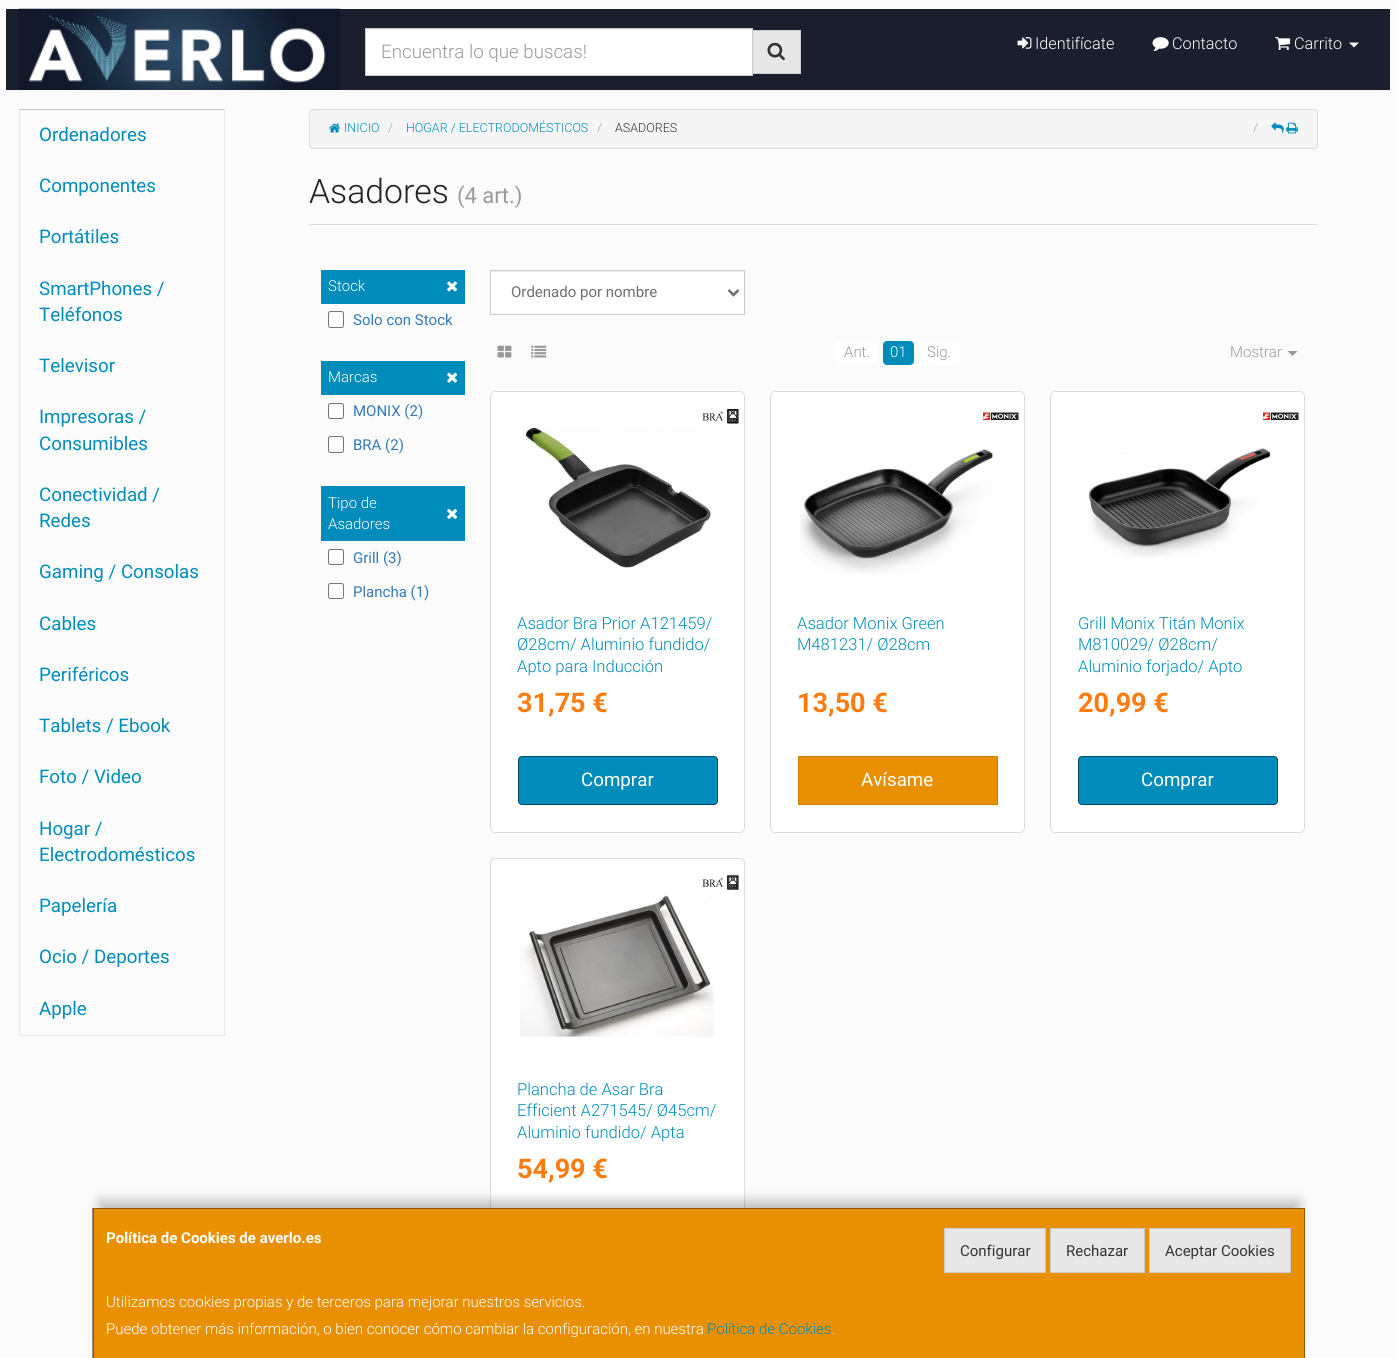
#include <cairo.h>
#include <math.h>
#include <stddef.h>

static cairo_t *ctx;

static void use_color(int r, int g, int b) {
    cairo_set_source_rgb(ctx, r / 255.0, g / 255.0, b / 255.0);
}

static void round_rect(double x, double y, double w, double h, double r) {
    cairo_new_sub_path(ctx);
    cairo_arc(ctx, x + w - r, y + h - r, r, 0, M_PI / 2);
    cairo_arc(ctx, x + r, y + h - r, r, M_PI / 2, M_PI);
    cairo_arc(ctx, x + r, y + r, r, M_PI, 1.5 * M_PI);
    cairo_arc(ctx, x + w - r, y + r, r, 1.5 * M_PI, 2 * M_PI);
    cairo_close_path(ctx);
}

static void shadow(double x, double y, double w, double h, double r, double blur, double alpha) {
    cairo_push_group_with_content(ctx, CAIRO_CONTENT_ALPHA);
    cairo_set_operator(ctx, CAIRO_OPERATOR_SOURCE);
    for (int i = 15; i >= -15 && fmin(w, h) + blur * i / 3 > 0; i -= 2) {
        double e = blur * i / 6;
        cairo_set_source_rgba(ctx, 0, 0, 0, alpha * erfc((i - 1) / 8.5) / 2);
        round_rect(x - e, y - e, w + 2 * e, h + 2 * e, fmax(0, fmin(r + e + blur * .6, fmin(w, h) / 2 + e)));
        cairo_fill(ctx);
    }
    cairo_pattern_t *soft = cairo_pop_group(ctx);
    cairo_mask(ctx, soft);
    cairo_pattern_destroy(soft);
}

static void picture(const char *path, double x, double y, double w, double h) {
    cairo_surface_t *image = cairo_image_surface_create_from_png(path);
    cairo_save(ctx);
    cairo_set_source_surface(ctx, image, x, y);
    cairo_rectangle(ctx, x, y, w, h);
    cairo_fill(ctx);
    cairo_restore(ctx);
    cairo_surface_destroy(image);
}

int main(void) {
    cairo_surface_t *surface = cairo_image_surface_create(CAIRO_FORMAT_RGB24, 1396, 1358);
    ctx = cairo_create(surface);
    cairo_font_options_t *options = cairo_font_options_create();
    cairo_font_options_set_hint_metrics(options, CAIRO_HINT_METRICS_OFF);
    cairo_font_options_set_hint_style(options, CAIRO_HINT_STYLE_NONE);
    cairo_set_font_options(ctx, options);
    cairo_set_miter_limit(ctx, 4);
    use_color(251, 251, 251);
    cairo_paint(ctx);
    use_color(26, 30, 45);
    cairo_rectangle(ctx, 6, 9, 1384, 81);
    cairo_fill(ctx);
    picture("img1.png", 18, 8, 322, 82);
    use_color(231, 231, 231);
    cairo_rectangle(ctx, 753, 31, 47, 42);
    cairo_fill(ctx);
    cairo_rectangle(ctx, 751.5, 30.5, 49, 43);
    use_color(204, 204, 204);
    cairo_set_line_width(ctx, 1);
    cairo_stroke(ctx);
    use_color(255, 255, 255);
    cairo_rectangle(ctx, 366, 29, 386, 46);
    cairo_fill(ctx);
    use_color(236, 236, 236);
    cairo_rectangle(ctx, 366, 29, 385, 1);
    cairo_fill(ctx);
    cairo_rectangle(ctx, 365.5, 28.5, 387, 47);
    use_color(204, 204, 204);
    cairo_stroke(ctx);
    cairo_select_font_face(ctx, "Roboto Light", CAIRO_FONT_SLANT_NORMAL, CAIRO_FONT_WEIGHT_NORMAL);
    cairo_set_font_size(ctx, 18.75);
    use_color(153, 153, 153);
    cairo_move_to(ctx, 381, 58);
    cairo_show_text(ctx, "Encuentra lo que buscas!");
    picture("img2.png", 767, 42, 18, 19);
    picture("img3.png", 1017, 37, 15, 12);
    cairo_set_font_size(ctx, 16.25);
    use_color(255, 255, 255);
    cairo_move_to(ctx, 1035, 49);
    cairo_show_text(ctx, "Identifícate");
    picture("img4.png", 1152, 37, 17, 14);
    cairo_move_to(ctx, 1172, 49);
    cairo_show_text(ctx, "Contacto");
    picture("img5.png", 1275, 37, 16, 13);
    cairo_move_to(ctx, 1294, 49);
    cairo_show_text(ctx, "Carrito");
    cairo_new_path(ctx);
    cairo_move_to(ctx, 1349, 42.5);
    cairo_line_to(ctx, 1359, 42.5);
    cairo_line_to(ctx, 1354, 47.5);
    cairo_close_path(ctx);
    cairo_fill(ctx);
    use_color(201, 201, 201);
    cairo_new_path(ctx);
    cairo_move_to(ctx, 19, 109);
    cairo_line_to(ctx, 225, 109);
    cairo_line_to(ctx, 224, 110);
    cairo_line_to(ctx, 20, 110);
    cairo_close_path(ctx);
    cairo_fill(ctx);
    use_color(232, 232, 232);
    cairo_new_path(ctx);
    cairo_move_to(ctx, 225, 109);
    cairo_line_to(ctx, 225, 1036);
    cairo_line_to(ctx, 224, 1035);
    cairo_line_to(ctx, 224, 110);
    cairo_close_path(ctx);
    cairo_fill(ctx);
    cairo_rectangle(ctx, 19, 1035, 206, 1);
    cairo_fill(ctx);
    cairo_new_path(ctx);
    cairo_move_to(ctx, 19, 1036);
    cairo_line_to(ctx, 19, 109);
    cairo_line_to(ctx, 20, 110);
    cairo_line_to(ctx, 20, 1035);
    cairo_close_path(ctx);
    cairo_fill(ctx);
    cairo_select_font_face(ctx, "Roboto", CAIRO_FONT_SLANT_NORMAL, CAIRO_FONT_WEIGHT_NORMAL);
    cairo_set_font_size(ctx, 18.75);
    use_color(0, 140, 186);
    cairo_move_to(ctx, 39, 141);
    cairo_show_text(ctx, "Ordenadores");
    cairo_move_to(ctx, 39, 192);
    cairo_show_text(ctx, "Componentes");
    cairo_move_to(ctx, 39, 243);
    cairo_show_text(ctx, "Portátiles");
    cairo_move_to(ctx, 39, 295);
    cairo_show_text(ctx, "SmartPhones /");
    cairo_move_to(ctx, 39, 321);
    cairo_show_text(ctx, "Teléfonos");
    cairo_move_to(ctx, 39, 372);
    cairo_show_text(ctx, "Televisor");
    cairo_move_to(ctx, 39, 423);
    cairo_show_text(ctx, "Impresoras /");
    cairo_move_to(ctx, 39, 450);
    cairo_show_text(ctx, "Consumibles");
    cairo_move_to(ctx, 39, 501);
    cairo_show_text(ctx, "Conectividad /");
    cairo_move_to(ctx, 39, 527);
    cairo_show_text(ctx, "Redes");
    cairo_move_to(ctx, 39, 578);
    cairo_show_text(ctx, "Gaming / Consolas");
    cairo_move_to(ctx, 39, 630);
    cairo_show_text(ctx, "Cables");
    cairo_move_to(ctx, 39, 681);
    cairo_show_text(ctx, "Periféricos");
    cairo_move_to(ctx, 39, 732);
    cairo_show_text(ctx, "Tablets / Ebook");
    cairo_move_to(ctx, 39, 783);
    cairo_show_text(ctx, "Foto / Video");
    cairo_move_to(ctx, 39, 835);
    cairo_show_text(ctx, "Hogar /");
    cairo_move_to(ctx, 39, 861);
    cairo_show_text(ctx, "Electrodomésticos");
    cairo_move_to(ctx, 39, 912);
    cairo_show_text(ctx, "Papelería");
    cairo_move_to(ctx, 39, 963);
    cairo_show_text(ctx, "Ocio / Deportes");
    cairo_move_to(ctx, 39, 1015);
    cairo_show_text(ctx, "Apple");
    use_color(245, 245, 245);
    round_rect(309.5, 109.5, 1008, 39, 3.5);
    cairo_fill_preserve(ctx);
    use_color(221, 221, 221);
    cairo_stroke(ctx);
    picture("img6.png", 329, 123, 12, 10);
    cairo_select_font_face(ctx, "Roboto Light", CAIRO_FONT_SLANT_NORMAL, CAIRO_FONT_WEIGHT_NORMAL);
    cairo_set_font_size(ctx, 12.5);
    use_color(0, 140, 186);
    cairo_move_to(ctx, 344, 132);
    cairo_show_text(ctx, "INICIO");
    use_color(153, 153, 153);
    cairo_move_to(ctx, 388, 132);
    cairo_show_text(ctx, "/");
    use_color(0, 140, 186);
    cairo_move_to(ctx, 406, 132);
    cairo_show_text(ctx, "HOGAR / ELECTRODOMÉSTICOS");
    use_color(153, 153, 153);
    cairo_move_to(ctx, 597, 132);
    cairo_show_text(ctx, "/");
    use_color(51, 51, 51);
    cairo_move_to(ctx, 615, 132);
    cairo_show_text(ctx, "ASADORES");
    use_color(153, 153, 153);
    cairo_move_to(ctx, 1253, 132);
    cairo_show_text(ctx, "/");
    picture("img7.png", 1271, 122, 13, 12);
    picture("img8.png", 1286, 122, 12, 12);
    use_color(221, 221, 221);
    cairo_rectangle(ctx, 309, 224, 1009, 1);
    cairo_fill(ctx);
    cairo_set_font_size(ctx, 33.75);
    use_color(34, 34, 34);
    cairo_move_to(ctx, 309, 203);
    cairo_show_text(ctx, "Asadores");
    cairo_select_font_face(ctx, "Roboto", CAIRO_FONT_SLANT_NORMAL, CAIRO_FONT_WEIGHT_NORMAL);
    cairo_set_font_size(ctx, 22);
    use_color(153, 153, 153);
    cairo_move_to(ctx, 457, 203);
    cairo_show_text(ctx, "(4 art.)");
    use_color(0, 140, 186);
    cairo_rectangle(ctx, 321, 270, 144, 34);
    cairo_fill(ctx);
    cairo_select_font_face(ctx, "Roboto Light", CAIRO_FONT_SLANT_NORMAL, CAIRO_FONT_WEIGHT_NORMAL);
    cairo_set_font_size(ctx, 15);
    use_color(255, 255, 255);
    cairo_move_to(ctx, 328, 291);
    cairo_show_text(ctx, "Stock");
    picture("img9.png", 447, 281, 11, 11);
    round_rect(328.5, 311.5, 15, 16, 2);
    cairo_fill_preserve(ctx);
    use_color(118, 118, 118);
    cairo_stroke(ctx);
    cairo_select_font_face(ctx, "Roboto", CAIRO_FONT_SLANT_NORMAL, CAIRO_FONT_WEIGHT_NORMAL);
    use_color(51, 122, 183);
    cairo_move_to(ctx, 353, 325);
    cairo_show_text(ctx, "Solo con Stock");
    use_color(0, 140, 186);
    cairo_rectangle(ctx, 321, 361, 144, 34);
    cairo_fill(ctx);
    cairo_select_font_face(ctx, "Roboto Light", CAIRO_FONT_SLANT_NORMAL, CAIRO_FONT_WEIGHT_NORMAL);
    use_color(255, 255, 255);
    cairo_move_to(ctx, 328, 382);
    cairo_show_text(ctx, "Marcas");
    picture("img10.png", 447, 372, 11, 11);
    round_rect(328.5, 403.5, 15, 15, 2);
    cairo_fill_preserve(ctx);
    use_color(118, 118, 118);
    cairo_stroke(ctx);
    cairo_select_font_face(ctx, "Roboto", CAIRO_FONT_SLANT_NORMAL, CAIRO_FONT_WEIGHT_NORMAL);
    use_color(51, 122, 183);
    cairo_move_to(ctx, 353, 416);
    cairo_show_text(ctx, "MONIX (2)");
    use_color(255, 255, 255);
    round_rect(328.5, 436.5, 15, 16, 2);
    cairo_fill_preserve(ctx);
    use_color(118, 118, 118);
    cairo_stroke(ctx);
    use_color(51, 122, 183);
    cairo_move_to(ctx, 353, 450);
    cairo_show_text(ctx, "BRA (2)");
    use_color(0, 140, 186);
    cairo_rectangle(ctx, 321, 486, 144, 55);
    cairo_fill(ctx);
    cairo_select_font_face(ctx, "Roboto Light", CAIRO_FONT_SLANT_NORMAL, CAIRO_FONT_WEIGHT_NORMAL);
    use_color(255, 255, 255);
    cairo_move_to(ctx, 328, 508);
    cairo_show_text(ctx, "Tipo de");
    picture("img11.png", 447, 509, 11, 10);
    cairo_move_to(ctx, 328, 529);
    cairo_show_text(ctx, "Asadores");
    round_rect(328.5, 549.5, 15, 15, 2);
    cairo_fill_preserve(ctx);
    use_color(118, 118, 118);
    cairo_stroke(ctx);
    cairo_select_font_face(ctx, "Roboto", CAIRO_FONT_SLANT_NORMAL, CAIRO_FONT_WEIGHT_NORMAL);
    use_color(51, 122, 183);
    cairo_move_to(ctx, 353, 563);
    cairo_show_text(ctx, "Grill (3)");
    use_color(255, 255, 255);
    round_rect(328.5, 583.5, 15, 15, 2);
    cairo_fill_preserve(ctx);
    use_color(118, 118, 118);
    cairo_stroke(ctx);
    use_color(51, 122, 183);
    cairo_move_to(ctx, 353, 597);
    cairo_show_text(ctx, "Plancha (1)");
    use_color(255, 255, 255);
    cairo_rectangle(ctx, 491, 272, 253, 42);
    cairo_fill(ctx);
    use_color(236, 236, 236);
    cairo_rectangle(ctx, 491, 271, 253, 1);
    cairo_fill(ctx);
    cairo_rectangle(ctx, 490.5, 270.5, 254, 44);
    use_color(204, 204, 204);
    cairo_stroke(ctx);
    cairo_new_path(ctx);
    cairo_move_to(ctx, 728.5, 290);
    cairo_line_to(ctx, 733.5, 295);
    cairo_line_to(ctx, 738.5, 290);
    use_color(111, 111, 111);
    cairo_set_line_width(ctx, 2.5);
    cairo_stroke(ctx);
    cairo_move_to(ctx, 511, 297);
    cairo_show_text(ctx, "Ordenado por nombre");
    picture("img12.png", 497, 345, 15, 13);
    picture("img13.png", 531, 345, 16, 13);
    use_color(255, 255, 255);
    round_rect(836, 341, 42, 24, 4);
    cairo_fill(ctx);
    cairo_select_font_face(ctx, "Roboto Light", CAIRO_FONT_SLANT_NORMAL, CAIRO_FONT_WEIGHT_NORMAL);
    use_color(153, 153, 153);
    cairo_move_to(ctx, 844, 357);
    cairo_show_text(ctx, "Ant.");
    use_color(0, 140, 186);
    round_rect(883, 341, 31, 24, 4);
    cairo_fill(ctx);
    use_color(255, 255, 255);
    cairo_move_to(ctx, 890, 357);
    cairo_show_text(ctx, "01");
    round_rect(919, 341, 40, 24, 4);
    cairo_fill(ctx);
    use_color(153, 153, 153);
    cairo_move_to(ctx, 927, 357);
    cairo_show_text(ctx, "Sig.");
    cairo_move_to(ctx, 1230, 357);
    cairo_show_text(ctx, "Mostrar");
    cairo_new_path(ctx);
    cairo_move_to(ctx, 1287.5, 351);
    cairo_line_to(ctx, 1297.5, 351);
    cairo_line_to(ctx, 1292.5, 356);
    cairo_close_path(ctx);
    cairo_fill(ctx);
    use_color(255, 255, 255);
    round_rect(490.5, 391.5, 254, 441, 4.5);
    cairo_fill_preserve(ctx);
    use_color(221, 221, 221);
    cairo_set_line_width(ctx, 1);
    cairo_stroke(ctx);
    picture("img14.png", 703, 409, 36, 15);
    picture("img15.png", 525, 427, 186, 141);
    cairo_set_font_size(ctx, 16.6);
    use_color(0, 140, 186);
    cairo_move_to(ctx, 517, 629);
    cairo_show_text(ctx, "Asador Bra Prior A121459/");
    cairo_move_to(ctx, 517, 650);
    cairo_show_text(ctx, "Ø28cm/ Aluminio fundido/");
    cairo_move_to(ctx, 517, 672);
    cairo_show_text(ctx, "Apto para Inducción");
    cairo_select_font_face(ctx, "Roboto", CAIRO_FONT_SLANT_NORMAL, CAIRO_FONT_WEIGHT_BOLD);
    cairo_set_font_size(ctx, 27);
    use_color(255, 123, 13);
    cairo_move_to(ctx, 517, 712);
    cairo_show_text(ctx, "31,75 €");
    use_color(0, 140, 186);
    round_rect(518.5, 756.5, 199, 48, 3.5);
    cairo_fill_preserve(ctx);
    use_color(3, 75, 99);
    cairo_stroke(ctx);
    cairo_select_font_face(ctx, "Roboto", CAIRO_FONT_SLANT_NORMAL, CAIRO_FONT_WEIGHT_NORMAL);
    cairo_set_font_size(ctx, 18.75);
    use_color(255, 255, 255);
    cairo_move_to(ctx, 581, 786);
    cairo_show_text(ctx, "Comprar");
    round_rect(770.5, 391.5, 254, 441, 4.5);
    cairo_fill_preserve(ctx);
    use_color(221, 221, 221);
    cairo_stroke(ctx);
    picture("img16.png", 983, 412, 36, 8);
    picture("img17.png", 800, 449, 193, 126);
    cairo_select_font_face(ctx, "Roboto Light", CAIRO_FONT_SLANT_NORMAL, CAIRO_FONT_WEIGHT_NORMAL);
    cairo_set_font_size(ctx, 16.6);
    use_color(0, 140, 186);
    cairo_move_to(ctx, 797, 629);
    cairo_show_text(ctx, "Asador Monix Green");
    cairo_move_to(ctx, 797, 650);
    cairo_show_text(ctx, "M481231/ Ø28cm");
    cairo_select_font_face(ctx, "Roboto", CAIRO_FONT_SLANT_NORMAL, CAIRO_FONT_WEIGHT_BOLD);
    cairo_set_font_size(ctx, 27);
    use_color(255, 123, 13);
    cairo_move_to(ctx, 797, 712);
    cairo_show_text(ctx, "13,50 €");
    use_color(233, 144, 2);
    cairo_rectangle(ctx, 798.5, 756.5, 199, 48);
    cairo_fill_preserve(ctx);
    use_color(208, 128, 2);
    cairo_stroke(ctx);
    cairo_select_font_face(ctx, "Roboto", CAIRO_FONT_SLANT_NORMAL, CAIRO_FONT_WEIGHT_NORMAL);
    cairo_set_font_size(ctx, 18.75);
    use_color(255, 255, 255);
    cairo_move_to(ctx, 861, 786);
    cairo_show_text(ctx, "Avísame");
    round_rect(1050.5, 391.5, 254, 441, 4.5);
    cairo_fill_preserve(ctx);
    use_color(221, 221, 221);
    cairo_stroke(ctx);
    picture("img16.png", 1263, 412, 36, 8);
    picture("img18.png", 1088, 448, 183, 111);
    cairo_select_font_face(ctx, "Roboto Light", CAIRO_FONT_SLANT_NORMAL, CAIRO_FONT_WEIGHT_NORMAL);
    cairo_set_font_size(ctx, 16.6);
    use_color(0, 140, 186);
    cairo_move_to(ctx, 1078, 629);
    cairo_show_text(ctx, "Grill Monix Titán Monix");
    cairo_move_to(ctx, 1078, 650);
    cairo_show_text(ctx, "M810029/ Ø28cm/");
    cairo_move_to(ctx, 1078, 672);
    cairo_show_text(ctx, "Aluminio forjado/ Apto");
    cairo_select_font_face(ctx, "Roboto", CAIRO_FONT_SLANT_NORMAL, CAIRO_FONT_WEIGHT_BOLD);
    cairo_set_font_size(ctx, 27);
    use_color(255, 123, 13);
    cairo_move_to(ctx, 1078, 712);
    cairo_show_text(ctx, "20,99 €");
    use_color(0, 140, 186);
    round_rect(1078.5, 756.5, 199, 48, 3.5);
    cairo_fill_preserve(ctx);
    use_color(3, 75, 99);
    cairo_stroke(ctx);
    cairo_select_font_face(ctx, "Roboto", CAIRO_FONT_SLANT_NORMAL, CAIRO_FONT_WEIGHT_NORMAL);
    cairo_set_font_size(ctx, 18.75);
    use_color(255, 255, 255);
    cairo_move_to(ctx, 1141, 786);
    cairo_show_text(ctx, "Comprar");
    round_rect(490.5, 858.5, 254, 439, 4.5);
    cairo_fill_preserve(ctx);
    use_color(221, 221, 221);
    cairo_stroke(ctx);
    picture("img19.png", 703, 875, 36, 15);
    picture("img20.png", 520, 895, 194, 142);
    cairo_select_font_face(ctx, "Roboto Light", CAIRO_FONT_SLANT_NORMAL, CAIRO_FONT_WEIGHT_NORMAL);
    cairo_set_font_size(ctx, 16.6);
    use_color(0, 140, 186);
    cairo_move_to(ctx, 517, 1095);
    cairo_show_text(ctx, "Plancha de Asar Bra");
    cairo_move_to(ctx, 517, 1116);
    cairo_show_text(ctx, "Efficient A271545/ Ø45cm/");
    cairo_move_to(ctx, 517, 1138);
    cairo_show_text(ctx, "Aluminio fundido/ Apta");
    cairo_select_font_face(ctx, "Roboto", CAIRO_FONT_SLANT_NORMAL, CAIRO_FONT_WEIGHT_BOLD);
    cairo_set_font_size(ctx, 27);
    use_color(255, 123, 13);
    cairo_move_to(ctx, 517, 1178);
    cairo_show_text(ctx, "54,99 €");
    use_color(0, 0, 0);
    shadow(99, 1201, 1200, 139, 0, 6, 0.25);
    use_color(233, 144, 2);
    cairo_rectangle(ctx, 93, 1208, 1212, 150);
    cairo_fill(ctx);
    use_color(140, 86, 1);
    cairo_new_path(ctx);
    cairo_move_to(ctx, 92, 1208);
    cairo_line_to(ctx, 1305, 1208);
    cairo_line_to(ctx, 1304, 1209);
    cairo_line_to(ctx, 94, 1209);
    cairo_close_path(ctx);
    cairo_fill(ctx);
    cairo_set_source_rgba(ctx, 0, 0, 0, 0.4);
    cairo_new_path(ctx);
    cairo_move_to(ctx, 1305, 1208);
    cairo_line_to(ctx, 1305, 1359);
    cairo_line_to(ctx, 1304, 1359);
    cairo_line_to(ctx, 1304, 1209);
    cairo_close_path(ctx);
    cairo_fill(ctx);
    cairo_new_path(ctx);
    cairo_move_to(ctx, 92, 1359);
    cairo_line_to(ctx, 92, 1208);
    cairo_line_to(ctx, 94, 1209);
    cairo_line_to(ctx, 94, 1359);
    cairo_close_path(ctx);
    cairo_fill(ctx);
    cairo_set_font_size(ctx, 15);
    use_color(255, 255, 255);
    cairo_move_to(ctx, 106, 1243);
    cairo_show_text(ctx, "Política de Cookies de averlo.es");
    use_color(231, 231, 231);
    cairo_rectangle(ctx, 944.5, 1228.5, 101, 44);
    cairo_fill_preserve(ctx);
    use_color(204, 204, 204);
    cairo_stroke(ctx);
    cairo_select_font_face(ctx, "Roboto", CAIRO_FONT_SLANT_NORMAL, CAIRO_FONT_WEIGHT_NORMAL);
    use_color(51, 51, 51);
    cairo_move_to(ctx, 960, 1256);
    cairo_show_text(ctx, "Configurar");
    use_color(231, 231, 231);
    cairo_rectangle(ctx, 1050.5, 1228.5, 94, 44);
    cairo_fill_preserve(ctx);
    use_color(204, 204, 204);
    cairo_stroke(ctx);
    use_color(51, 51, 51);
    cairo_move_to(ctx, 1066, 1256);
    cairo_show_text(ctx, "Rechazar");
    use_color(231, 231, 231);
    cairo_rectangle(ctx, 1149.5, 1228.5, 141, 44);
    cairo_fill_preserve(ctx);
    use_color(204, 204, 204);
    cairo_stroke(ctx);
    use_color(51, 51, 51);
    cairo_move_to(ctx, 1165, 1256);
    cairo_show_text(ctx, "Aceptar Cookies");
    cairo_select_font_face(ctx, "Roboto Light", CAIRO_FONT_SLANT_NORMAL, CAIRO_FONT_WEIGHT_NORMAL);
    use_color(255, 255, 255);
    cairo_move_to(ctx, 106, 1307);
    cairo_show_text(ctx, "Utilizamos cookies propias y de terceros para mejorar nuestros servicios.");
    cairo_move_to(ctx, 106, 1334);
    cairo_show_text(ctx, "Puede obtener más información, o bien conocer cómo cambiar la configuración, en nuestra");
    use_color(0, 140, 186);
    cairo_move_to(ctx, 707, 1334);
    cairo_show_text(ctx, "Política de Cookies");
    use_color(255, 255, 255);
    cairo_move_to(ctx, 832, 1334);
    cairo_show_text(ctx, ".");
    cairo_surface_write_to_png(surface, "result.png");
    cairo_font_options_destroy(options);
    cairo_destroy(ctx);
    cairo_surface_destroy(surface);
    return 0;
}
